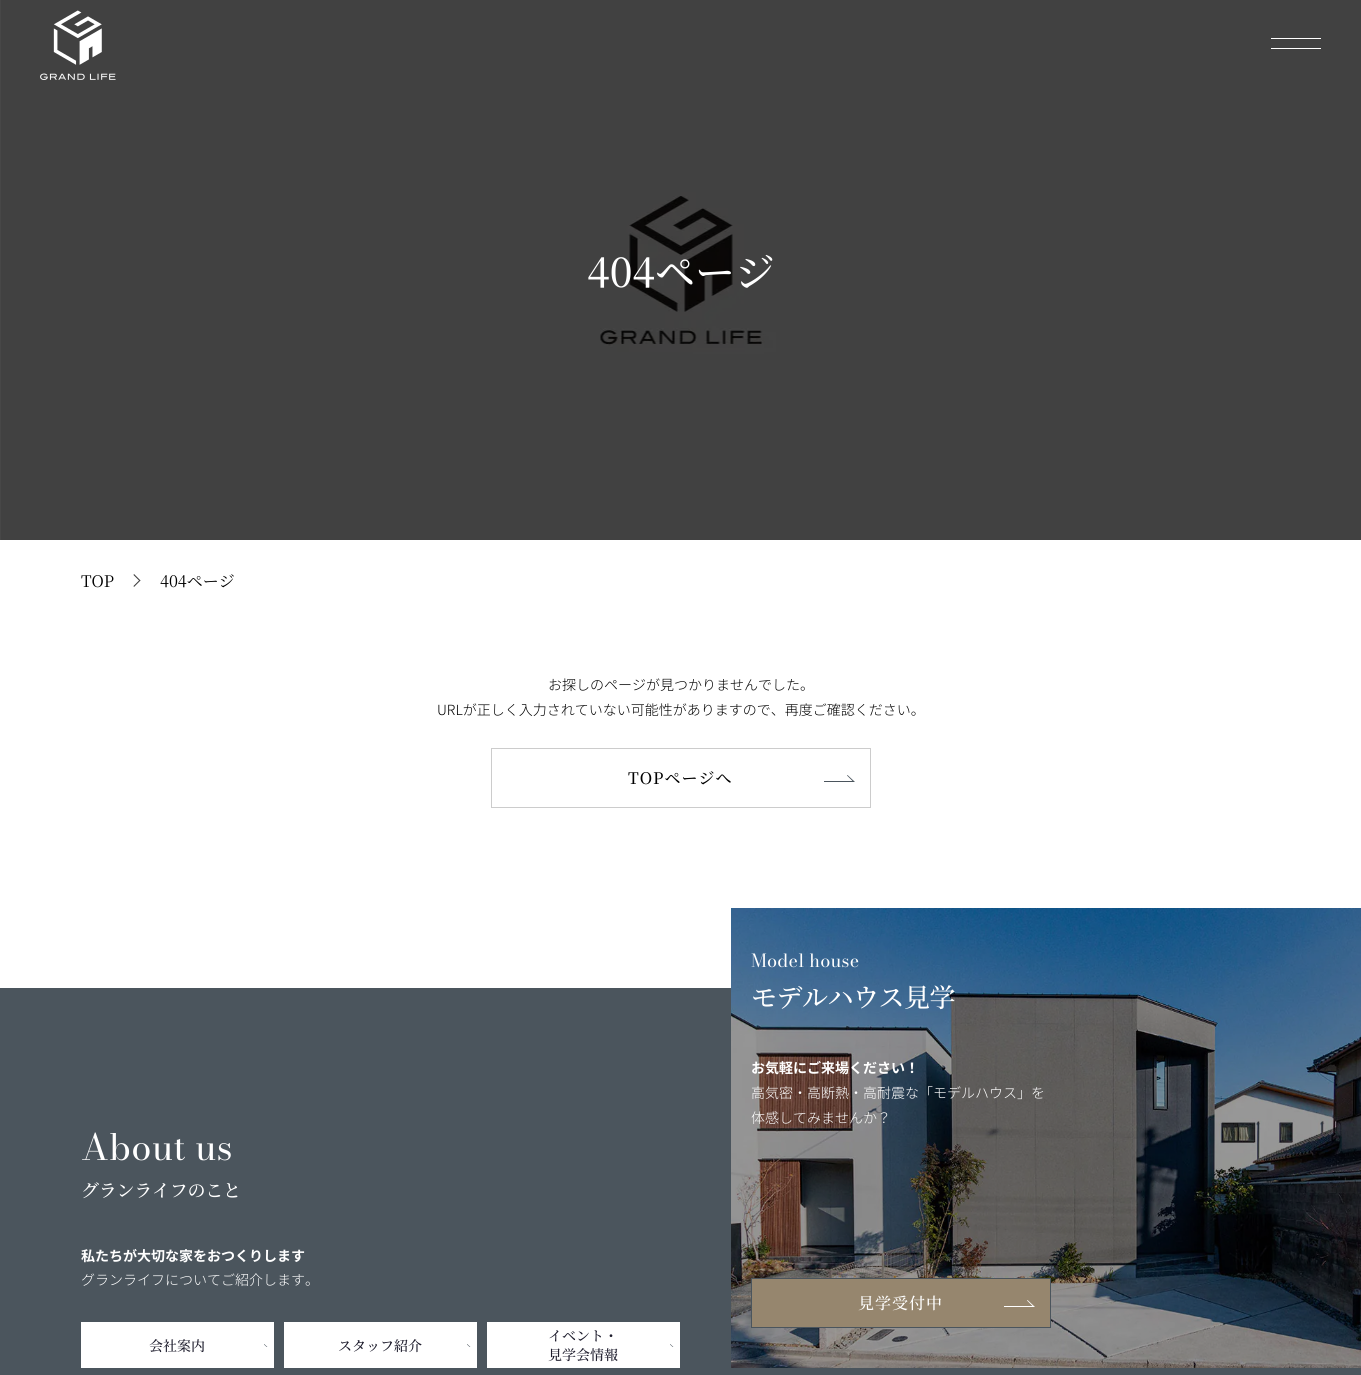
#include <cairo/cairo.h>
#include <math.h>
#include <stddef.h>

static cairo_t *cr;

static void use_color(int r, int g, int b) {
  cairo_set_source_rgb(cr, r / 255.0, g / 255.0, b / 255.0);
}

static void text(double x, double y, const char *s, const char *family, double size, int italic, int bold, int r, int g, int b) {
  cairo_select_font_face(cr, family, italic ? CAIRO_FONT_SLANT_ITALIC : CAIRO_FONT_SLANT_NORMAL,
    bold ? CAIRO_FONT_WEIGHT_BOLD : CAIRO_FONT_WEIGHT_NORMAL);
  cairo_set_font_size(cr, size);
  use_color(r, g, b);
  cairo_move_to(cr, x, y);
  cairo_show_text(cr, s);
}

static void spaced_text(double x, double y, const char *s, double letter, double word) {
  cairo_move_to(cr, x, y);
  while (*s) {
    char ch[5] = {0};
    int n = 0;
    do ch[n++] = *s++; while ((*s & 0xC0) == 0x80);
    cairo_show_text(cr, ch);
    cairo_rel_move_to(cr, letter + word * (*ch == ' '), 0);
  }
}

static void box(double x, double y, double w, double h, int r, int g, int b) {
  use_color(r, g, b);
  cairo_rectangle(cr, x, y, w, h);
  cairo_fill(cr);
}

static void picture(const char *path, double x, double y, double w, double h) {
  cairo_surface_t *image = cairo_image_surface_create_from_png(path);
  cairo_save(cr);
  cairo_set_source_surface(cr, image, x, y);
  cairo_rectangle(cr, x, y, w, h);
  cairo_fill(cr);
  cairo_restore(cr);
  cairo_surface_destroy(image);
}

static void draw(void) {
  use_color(255, 255, 255);
  cairo_paint(cr);
  box(0, 0, 1, 540, 77, 77, 77);
  picture("img_02.png", 0, 0, 1361, 540);
  picture("img_01.png", 40, 10, 76, 70);
  box(1271, 38, 50, 1, 255, 255, 255);
  box(1271, 48, 50, 1, 255, 255, 255);
  use_color(60, 60, 60);
  cairo_new_path(cr);
  cairo_move_to(cr, 133.5, 575);
  cairo_line_to(cr, 134, 574);
  cairo_line_to(cr, 140.5, 580.5);
  cairo_line_to(cr, 139.5, 581);
  cairo_close_path(cr);
  cairo_fill(cr);
  cairo_new_path(cr);
  cairo_move_to(cr, 133.5, 586);
  cairo_line_to(cr, 139.5, 580);
  cairo_line_to(cr, 140.5, 580.5);
  cairo_line_to(cr, 134, 587);
  cairo_close_path(cr);
  cairo_fill(cr);
  use_color(75, 85, 93);
  cairo_set_fill_rule(cr, CAIRO_FILL_RULE_EVEN_ODD);
  cairo_new_path(cr);
  cairo_move_to(cr, 855, 782);
  cairo_line_to(cr, 824, 782);
  cairo_line_to(cr, 824, 781);
  cairo_line_to(cr, 852.5, 781);
  cairo_line_to(cr, 847, 775.5);
  cairo_line_to(cr, 847.5, 775);
  cairo_close_path(cr);
  cairo_fill(cr);
  cairo_rectangle(cr, 491.5, 748.5, 379, 59);
  use_color(204, 204, 204);
  cairo_set_line_width(cr, 1);
  cairo_stroke(cr);
  box(0, 988, 1361, 387, 75, 85, 93);
  box(81, 1322, 193, 46, 255, 255, 255);
  picture("img_03.png", 264, 1344, 4, 3);
  box(284, 1322, 193, 46, 255, 255, 255);
  picture("img_03.png", 467, 1344, 4, 3);
  box(487, 1322, 193, 46, 255, 255, 255);
  picture("img_03.png", 670, 1344, 4, 3);
  picture("img_04.png", 731, 908, 630, 460);
  box(752, 1279, 298, 48, 150, 134, 110);
  use_color(255, 255, 255);
  cairo_new_path(cr);
  cairo_move_to(cr, 1035, 1307);
  cairo_line_to(cr, 1004, 1307);
  cairo_line_to(cr, 1004, 1306);
  cairo_line_to(cr, 1032.5, 1306);
  cairo_line_to(cr, 1027, 1300.5);
  cairo_line_to(cr, 1027.5, 1300);
  cairo_close_path(cr);
  cairo_fill(cr);
  cairo_rectangle(cr, 751.5, 1278.5, 299, 49);
  use_color(75, 85, 93);
  cairo_stroke(cr);
  text(587, 287, "404ページ", "Noto Serif JP Medium", 40, 0, 0, 255, 255, 255);
  text(81, 587, "TOP", "Noto Serif JP", 16, 0, 0, 0, 0, 0);
  text(160, 587, "404ページ", "Noto Serif JP", 16, 0, 0, 0, 0, 0);
  text(548, 690, "お探しのページが見つかりませんでした。", "Noto Sans JP Light", 14, 0, 0, 0, 0, 0);
  text(437, 715, "URLが正しく入力されていない可能性がありますので、再度ご確認ください。", "Noto Sans JP Light", 14, 0, 0, 0, 0, 0);
  cairo_select_font_face(cr, "Noto Serif JP Medium", CAIRO_FONT_SLANT_NORMAL, CAIRO_FONT_WEIGHT_NORMAL);
  cairo_set_font_size(cr, 16);
  spaced_text(628, 784, "TOPページへ", 1, 0);
  cairo_select_font_face(cr, "Bodoni Moda", CAIRO_FONT_SLANT_NORMAL, CAIRO_FONT_WEIGHT_NORMAL);
  cairo_set_font_size(cr, 36);
  use_color(255, 255, 255);
  spaced_text(81, 1160, "About us", 0.25, 0);
  cairo_select_font_face(cr, "Noto Serif JP Medium", CAIRO_FONT_SLANT_NORMAL, CAIRO_FONT_WEIGHT_NORMAL);
  cairo_set_font_size(cr, 18);
  spaced_text(81, 1197, "グランライフのこと", -0.25, 0);
  text(81, 1261, "私たちが大切な家をおつくりします", "Noto Sans JP", 14, 0, 1, 255, 255, 255);
  text(81, 1285, "グランライフについてご紹介します。", "Noto Sans JP Light", 14, 0, 0, 255, 255, 255);
  text(149, 1351, "会社案内", "Noto Serif JP Medium", 14, 0, 0, 29, 28, 44);
  text(338, 1351, "スタッフ紹介", "Noto Serif JP Medium", 14, 0, 0, 29, 28, 44);
  text(548, 1341, "イベント・", "Noto Serif JP Medium", 14, 0, 0, 29, 28, 44);
  text(548, 1360, "見学会情報", "Noto Serif JP Medium", 14, 0, 0, 29, 28, 44);
  cairo_select_font_face(cr, "Bodoni Moda", CAIRO_FONT_SLANT_NORMAL, CAIRO_FONT_WEIGHT_NORMAL);
  cairo_set_font_size(cr, 18);
  use_color(255, 255, 255);
  spaced_text(751, 967, "Model house", 0.25, 0);
  cairo_select_font_face(cr, "Noto Serif JP Medium", CAIRO_FONT_SLANT_NORMAL, CAIRO_FONT_WEIGHT_NORMAL);
  cairo_set_font_size(cr, 26);
  spaced_text(751, 1007, "モデルハウス見学", -0.5, 0);
  text(751, 1073, "お気軽にご来場ください！", "Noto Sans JP", 14, 0, 1, 255, 255, 255);
  text(751, 1098, "高気密・高断熱・高耐震な「モデルハウス」を", "Noto Sans JP Light", 14, 0, 0, 255, 255, 255);
  text(751, 1123, "体感してみませんか？", "Noto Sans JP Light", 14, 0, 0, 255, 255, 255);
  cairo_select_font_face(cr, "Noto Serif JP Medium", CAIRO_FONT_SLANT_NORMAL, CAIRO_FONT_WEIGHT_NORMAL);
  cairo_set_font_size(cr, 16);
  spaced_text(858, 1309, "見学受付中", 1, 0);
}

int main(void) {
  cairo_surface_t *surface = cairo_image_surface_create(CAIRO_FORMAT_RGB24, 1361, 1375);
  cr = cairo_create(surface);
  cairo_font_options_t *options = cairo_font_options_create();
  cairo_font_options_set_hint_metrics(options, CAIRO_HINT_METRICS_OFF);
  cairo_font_options_set_hint_style(options, CAIRO_HINT_STYLE_NONE);
  cairo_set_font_options(cr, options);
  cairo_set_miter_limit(cr, 4);
  draw();
  cairo_surface_write_to_png(surface, "out.png");
  cairo_font_options_destroy(options);
  cairo_destroy(cr);
  cairo_surface_destroy(surface);
  return 0;
}
